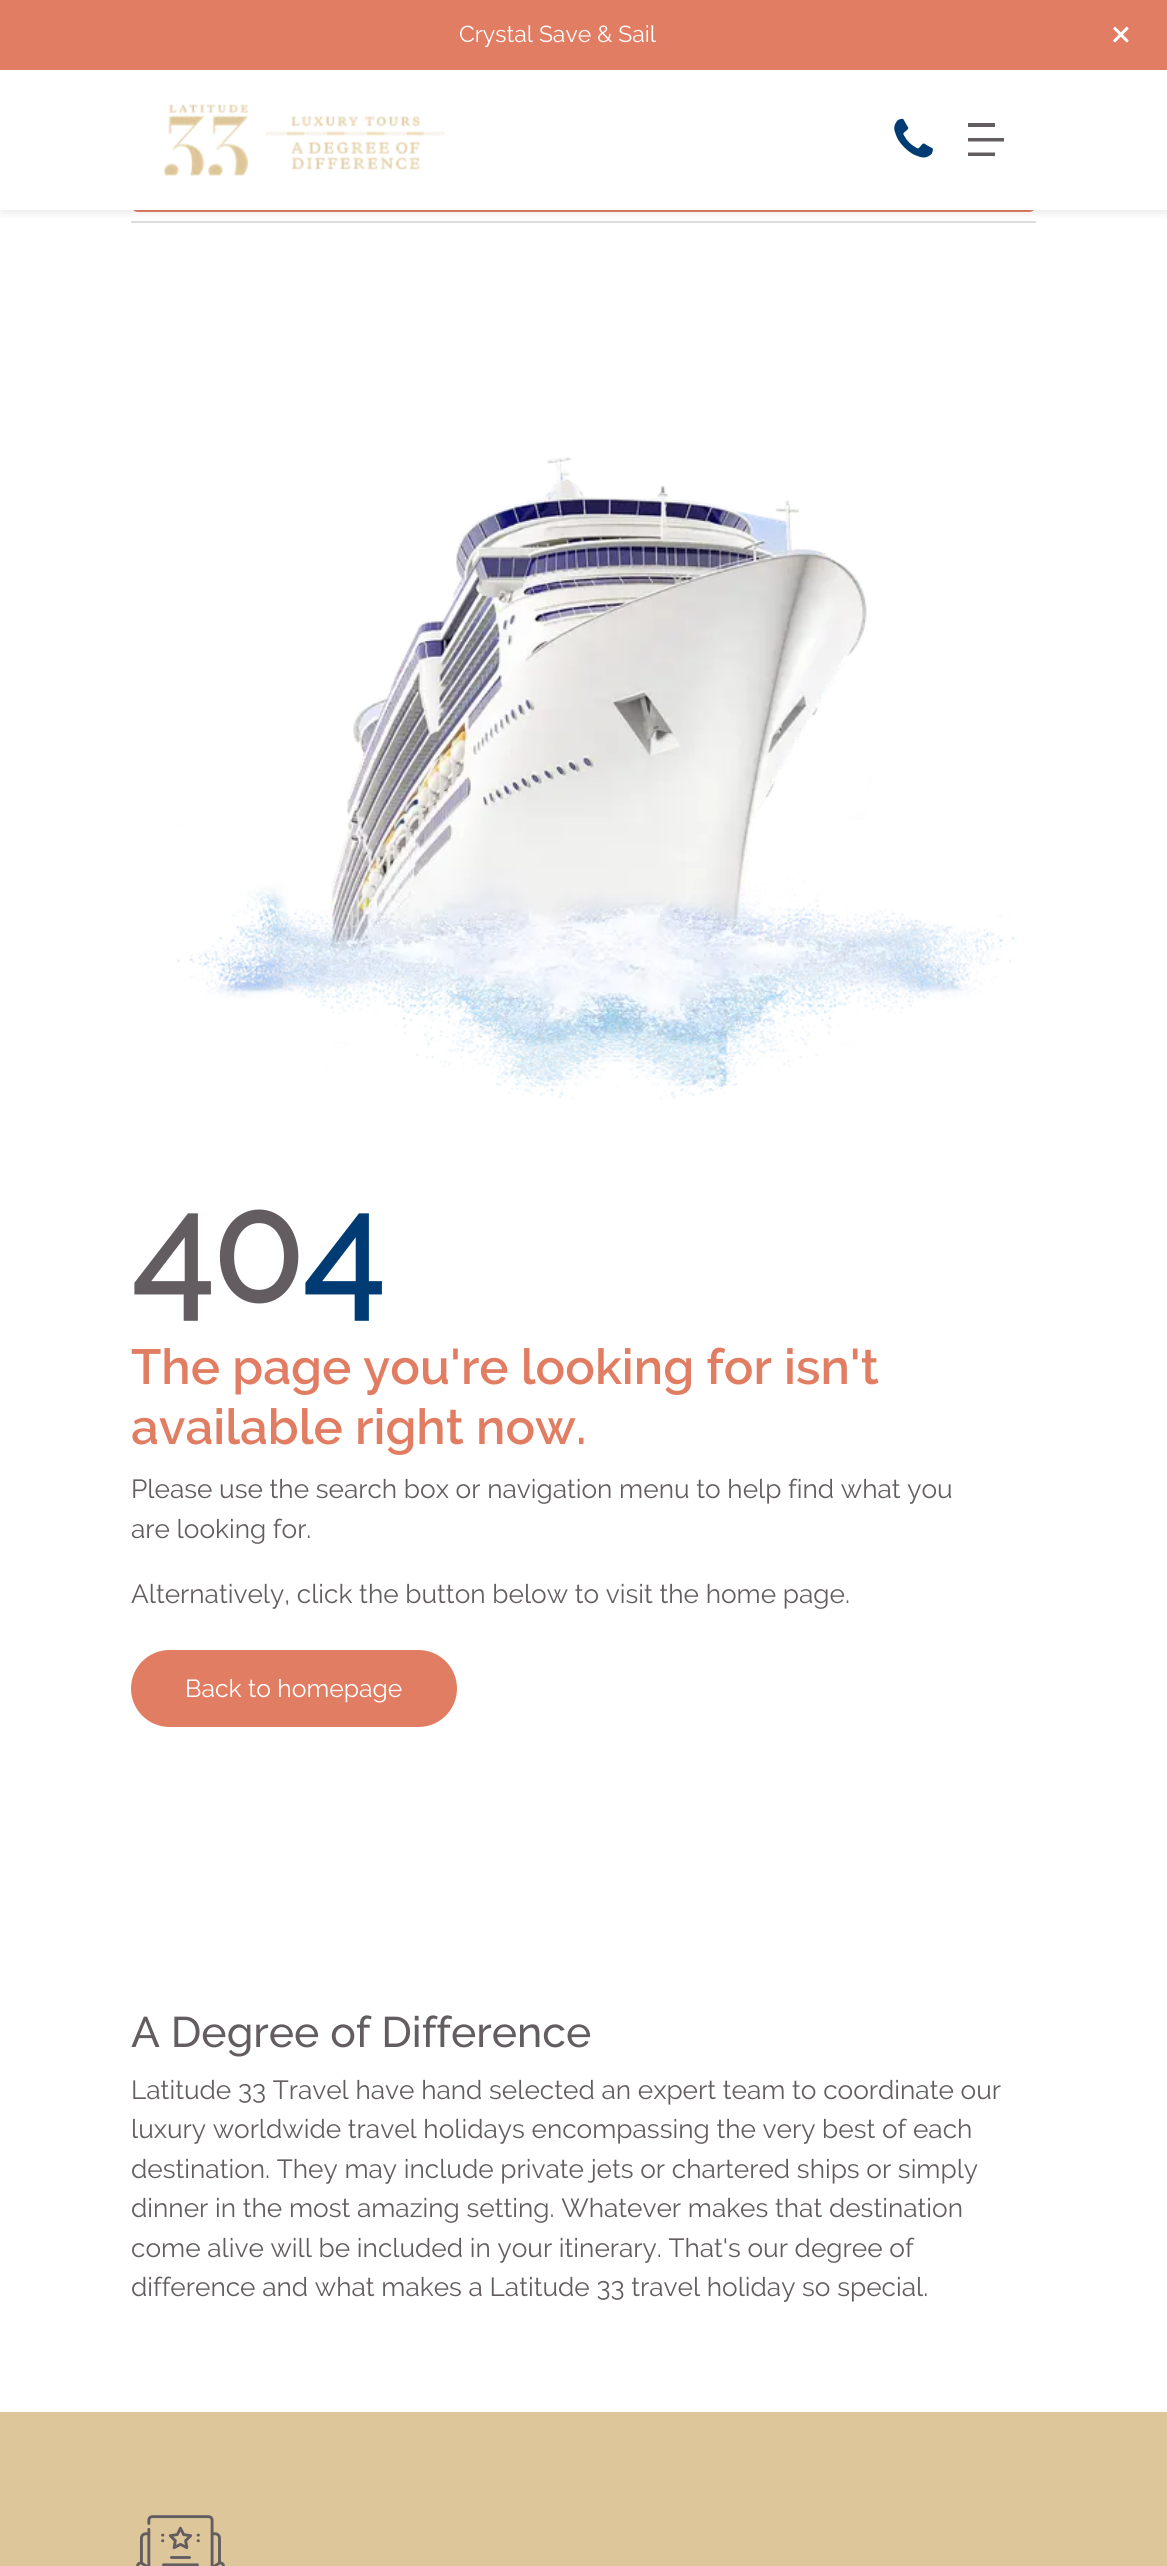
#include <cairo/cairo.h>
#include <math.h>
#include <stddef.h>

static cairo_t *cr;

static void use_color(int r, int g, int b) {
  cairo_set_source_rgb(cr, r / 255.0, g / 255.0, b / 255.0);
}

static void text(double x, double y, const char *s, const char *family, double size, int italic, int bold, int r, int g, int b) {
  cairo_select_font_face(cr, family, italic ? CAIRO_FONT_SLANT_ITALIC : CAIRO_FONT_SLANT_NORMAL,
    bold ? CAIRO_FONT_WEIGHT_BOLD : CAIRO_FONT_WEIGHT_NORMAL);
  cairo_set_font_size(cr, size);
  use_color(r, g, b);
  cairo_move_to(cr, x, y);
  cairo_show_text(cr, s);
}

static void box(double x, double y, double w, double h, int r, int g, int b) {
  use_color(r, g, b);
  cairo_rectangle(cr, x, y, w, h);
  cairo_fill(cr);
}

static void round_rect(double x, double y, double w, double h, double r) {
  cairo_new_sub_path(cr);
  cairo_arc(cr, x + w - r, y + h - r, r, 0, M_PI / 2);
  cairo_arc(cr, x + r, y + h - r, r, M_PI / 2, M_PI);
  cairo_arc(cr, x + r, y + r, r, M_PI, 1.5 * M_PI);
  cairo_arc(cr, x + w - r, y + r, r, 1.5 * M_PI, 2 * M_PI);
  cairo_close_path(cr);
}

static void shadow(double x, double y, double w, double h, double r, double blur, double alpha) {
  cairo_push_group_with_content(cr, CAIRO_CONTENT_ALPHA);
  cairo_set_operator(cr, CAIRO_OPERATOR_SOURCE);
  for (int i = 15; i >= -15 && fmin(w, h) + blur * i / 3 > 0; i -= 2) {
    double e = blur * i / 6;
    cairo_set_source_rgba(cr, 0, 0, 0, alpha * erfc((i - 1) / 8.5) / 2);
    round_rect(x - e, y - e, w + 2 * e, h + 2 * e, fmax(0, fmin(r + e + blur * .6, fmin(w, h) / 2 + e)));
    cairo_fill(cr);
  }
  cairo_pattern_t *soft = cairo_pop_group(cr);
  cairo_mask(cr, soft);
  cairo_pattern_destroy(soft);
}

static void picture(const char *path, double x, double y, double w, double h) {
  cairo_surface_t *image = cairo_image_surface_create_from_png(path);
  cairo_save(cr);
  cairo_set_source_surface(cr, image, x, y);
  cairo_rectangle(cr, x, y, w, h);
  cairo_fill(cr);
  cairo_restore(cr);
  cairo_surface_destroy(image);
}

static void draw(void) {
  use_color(255, 255, 255);
  cairo_paint(cr);
  box(0, 0, 1167, 70, 225, 125, 99);
  picture("img_01.png", 1113, 26, 16, 17);
  round_rect(131, 140, 905, 72, 7);
  cairo_fill(cr);
  box(131, 221, 905, 2, 221, 221, 221);
  use_color(0, 0, 0);
  shadow(0, 74, 1167, 140, 0, 3.5, 0.07);
  box(0, 70, 1167, 140, 255, 255, 255);
  picture("img_02.png", 163, 104, 282, 72);
  picture("img_03.png", 894, 118, 39, 40);
  use_color(99, 93, 97);
  cairo_new_path(cr);
  cairo_move_to(cr, 968, 123);
  cairo_line_to(cr, 995, 123);
  cairo_line_to(cr, 995, 127);
  cairo_line_to(cr, 968, 127);
  cairo_close_path(cr);
  cairo_move_to(cr, 968, 138);
  cairo_line_to(cr, 1004, 138);
  cairo_line_to(cr, 1004, 141.5);
  cairo_line_to(cr, 968, 141.5);
  cairo_close_path(cr);
  cairo_move_to(cr, 968, 152.5);
  cairo_line_to(cr, 995, 152.5);
  cairo_line_to(cr, 995, 156);
  cairo_line_to(cr, 968, 156);
  cairo_close_path(cr);
  cairo_fill(cr);
  picture("img_04.png", 175, 457, 843, 643);
  use_color(225, 125, 99);
  round_rect(131, 1650, 326, 77, 38.5);
  cairo_fill(cr);
  box(0, 2412, 1167, 154, 221, 198, 154);
  picture("img_05.png", 136, 2515, 89, 51);
  text(459, 42, "Crystal Save & Sail", "Raleway", 23, 0, 0, 255, 255, 255);
  text(131, 1302, "40", "Raleway", 148, 0, 1, 99, 93, 97);
  text(302, 1302, "4", "Raleway", 148, 0, 1, 0, 60, 115);
  text(131, 1384, "The page you're looking for isn't", "Raleway SemiBold", 49.25, 0, 0, 225, 125, 99);
  text(131, 1444, "available right now.", "Raleway SemiBold", 49.25, 0, 0, 225, 125, 99);
  text(131, 1498, "Please use the search box or navigation menu to help find what you", "Raleway", 26.25, 0, 0, 99, 93, 97);
  text(131, 1538, "are looking for.", "Raleway", 26.25, 0, 0, 99, 93, 97);
  text(131, 1603, "Alternatively, click the button below to visit the home page.", "Raleway", 26.25, 0, 0, 99, 93, 97);
  text(185, 1697, "Back to homepage", "Raleway", 24.75, 0, 0, 255, 255, 255);
  text(131, 2047, "A Degree of Difference", "Raleway Medium", 42.75, 0, 0, 99, 93, 97);
  text(131, 2099, "Latitude 33 Travel have hand selected an expert team to coordinate our", "Raleway", 26.25, 0, 0, 99, 93, 97);
  text(131, 2138, "luxury worldwide travel holidays encompassing the very best of each", "Raleway", 26.25, 0, 0, 99, 93, 97);
  text(131, 2178, "destination. They may include private jets or chartered ships or simply", "Raleway", 26.25, 0, 0, 99, 93, 97);
  text(131, 2217, "dinner in the most amazing setting. Whatever makes that destination", "Raleway", 26.25, 0, 0, 99, 93, 97);
  text(131, 2257, "come alive will be included in your itinerary. That's our degree of", "Raleway", 26.25, 0, 0, 99, 93, 97);
  text(131, 2296, "difference and what makes a Latitude 33 travel holiday so special.", "Raleway", 26.25, 0, 0, 99, 93, 97);
}

int main(void) {
  cairo_surface_t *surface = cairo_image_surface_create(CAIRO_FORMAT_RGB24, 1167, 2566);
  cr = cairo_create(surface);
  cairo_font_options_t *options = cairo_font_options_create();
  cairo_font_options_set_hint_metrics(options, CAIRO_HINT_METRICS_OFF);
  cairo_font_options_set_hint_style(options, CAIRO_HINT_STYLE_NONE);
  cairo_set_font_options(cr, options);
  cairo_set_miter_limit(cr, 4);
  draw();
  cairo_surface_write_to_png(surface, "out.png");
  cairo_font_options_destroy(options);
  cairo_destroy(cr);
  cairo_surface_destroy(surface);
  return 0;
}
